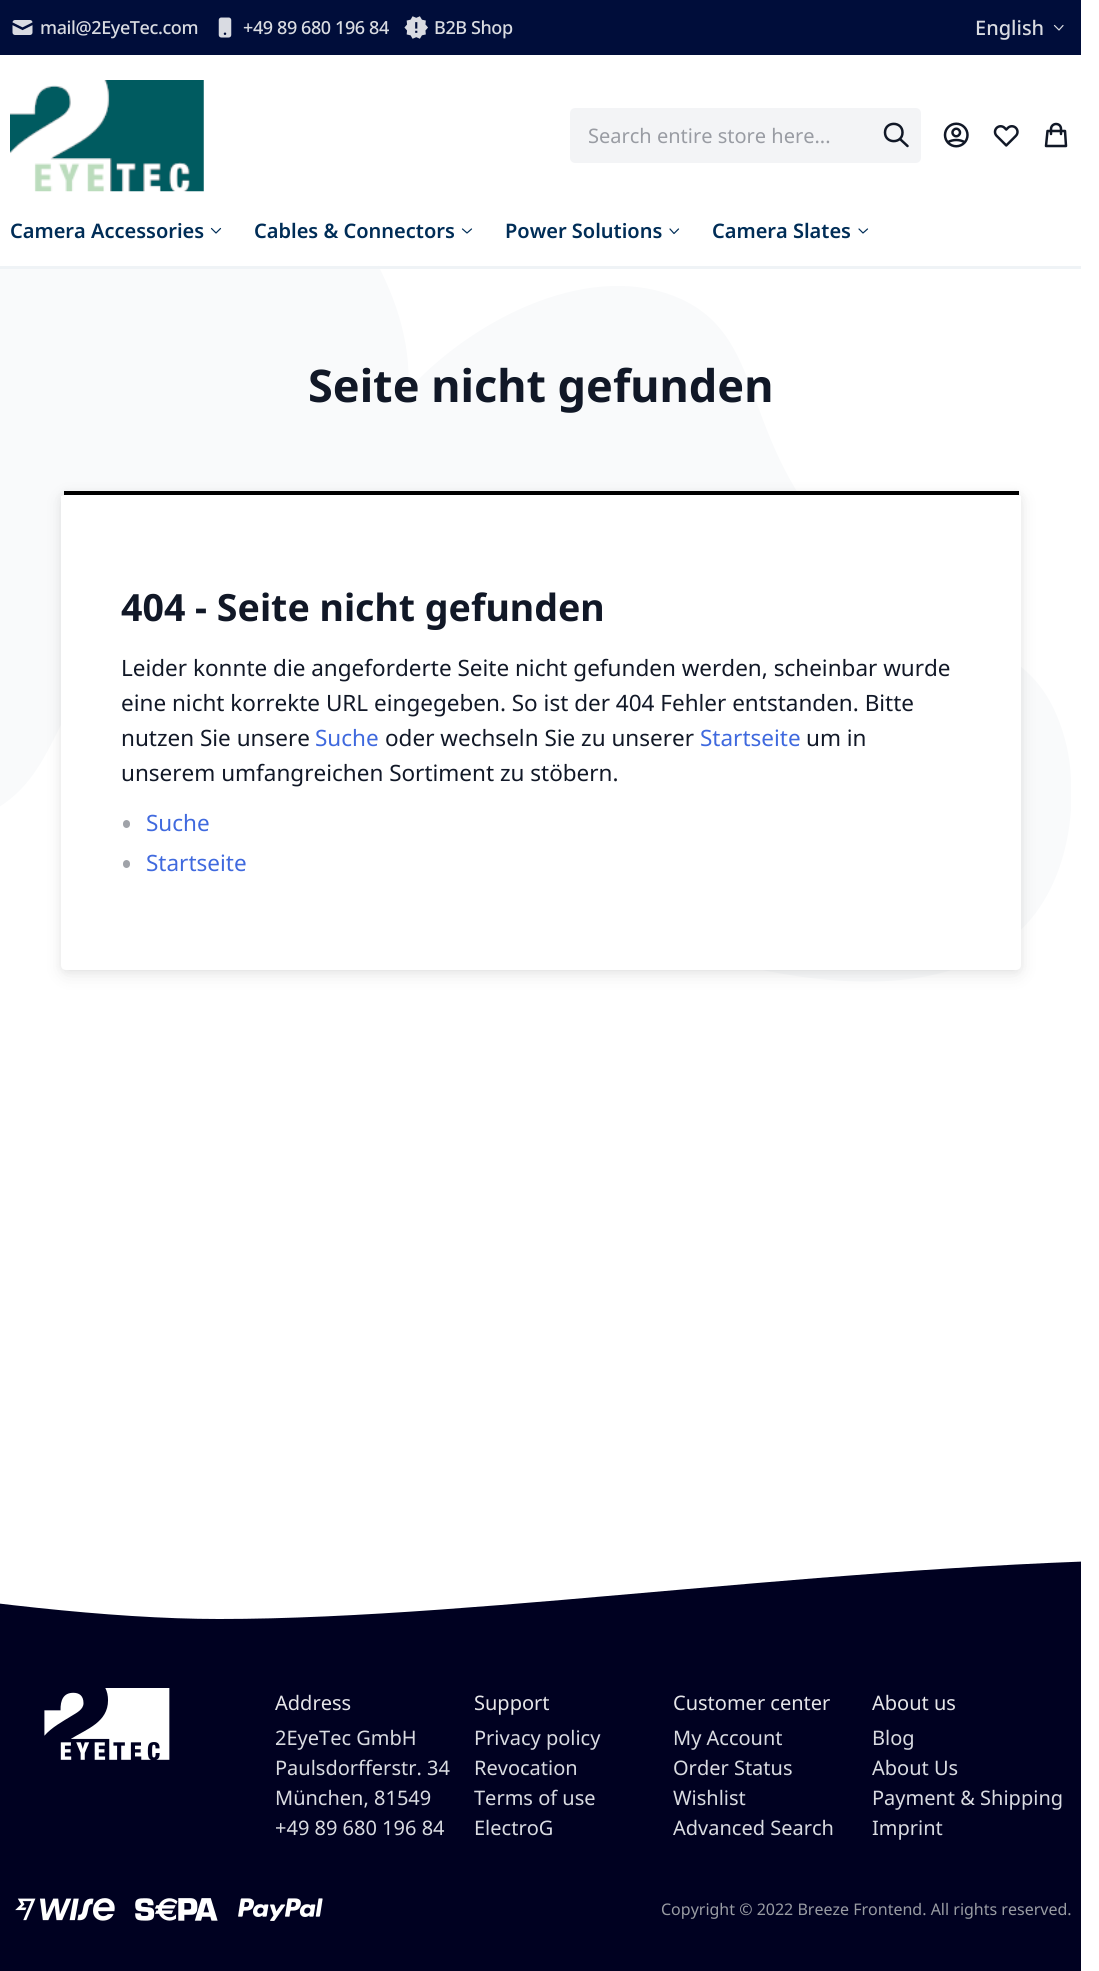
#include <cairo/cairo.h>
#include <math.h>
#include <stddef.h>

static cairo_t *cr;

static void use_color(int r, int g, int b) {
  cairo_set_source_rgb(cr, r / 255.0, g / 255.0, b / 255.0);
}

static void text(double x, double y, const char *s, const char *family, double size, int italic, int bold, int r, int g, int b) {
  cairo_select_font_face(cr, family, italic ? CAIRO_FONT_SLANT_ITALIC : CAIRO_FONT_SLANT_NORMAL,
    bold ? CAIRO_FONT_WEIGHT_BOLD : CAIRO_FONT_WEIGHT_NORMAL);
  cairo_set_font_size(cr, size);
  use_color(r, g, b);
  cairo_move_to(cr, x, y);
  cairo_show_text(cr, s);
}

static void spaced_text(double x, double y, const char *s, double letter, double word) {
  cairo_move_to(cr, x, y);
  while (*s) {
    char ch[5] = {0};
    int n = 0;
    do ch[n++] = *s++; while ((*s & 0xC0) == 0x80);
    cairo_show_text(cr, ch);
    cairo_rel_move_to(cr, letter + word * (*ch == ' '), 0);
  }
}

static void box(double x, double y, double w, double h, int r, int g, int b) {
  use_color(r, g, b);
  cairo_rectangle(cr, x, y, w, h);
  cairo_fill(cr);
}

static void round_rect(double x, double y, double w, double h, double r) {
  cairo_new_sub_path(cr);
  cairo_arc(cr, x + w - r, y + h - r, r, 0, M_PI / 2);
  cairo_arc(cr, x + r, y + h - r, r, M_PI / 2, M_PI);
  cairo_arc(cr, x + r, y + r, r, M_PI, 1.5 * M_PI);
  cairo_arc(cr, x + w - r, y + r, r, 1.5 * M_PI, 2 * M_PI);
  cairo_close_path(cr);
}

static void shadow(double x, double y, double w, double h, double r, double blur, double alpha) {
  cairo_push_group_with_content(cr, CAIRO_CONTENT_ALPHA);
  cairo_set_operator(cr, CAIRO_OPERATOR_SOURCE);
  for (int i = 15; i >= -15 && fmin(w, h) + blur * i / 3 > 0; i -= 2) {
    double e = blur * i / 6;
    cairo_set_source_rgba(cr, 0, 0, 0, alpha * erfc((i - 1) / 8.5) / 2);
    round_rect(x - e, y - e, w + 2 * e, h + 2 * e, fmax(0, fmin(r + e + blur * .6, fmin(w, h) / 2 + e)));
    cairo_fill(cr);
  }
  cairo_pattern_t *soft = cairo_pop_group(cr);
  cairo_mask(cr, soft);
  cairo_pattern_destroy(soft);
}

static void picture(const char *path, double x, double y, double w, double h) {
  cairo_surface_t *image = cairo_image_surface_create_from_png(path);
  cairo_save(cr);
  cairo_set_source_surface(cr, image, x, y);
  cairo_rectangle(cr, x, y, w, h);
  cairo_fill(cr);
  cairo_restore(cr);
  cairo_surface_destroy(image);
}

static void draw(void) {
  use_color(255, 255, 255);
  cairo_paint(cr);
  use_color(249, 250, 251);
  cairo_new_path(cr);
  cairo_move_to(cr, 309, 173);
  cairo_curve_to(cr, 377, 238, 436, 353, 395, 441);
  cairo_curve_to(cr, 353, 533, 246, 495, 134, 615);
  cairo_curve_to(cr, 46, 709, 61, 783, -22, 818);
  cairo_curve_to(cr, -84, 843, -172, 835, -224, 791);
  cairo_curve_to(cr, -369, 670, -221, 346, -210, 323);
  cairo_curve_to(cr, -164, 227, -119, 132, -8, 95);
  cairo_curve_to(cr, 103, 59, 230, 98, 309, 173);
  cairo_close_path(cr);
  cairo_fill(cr);
  box(0, 81, 378, 185, 255, 255, 255);
  box(0, 266, 1081, 3, 239, 243, 246);
  box(0, 0, 1081, 55, 0, 13, 58);
  picture("img_01.png", 12, 20, 21, 15);
  picture("img_02.png", 218, 17, 14, 21);
  picture("img_03.png", 404, 16, 24, 23);
  cairo_new_path(cr);
  cairo_move_to(cr, 1063, 25.5);
  cairo_line_to(cr, 1059, 30);
  cairo_line_to(cr, 1054.5, 25.5);
  use_color(217, 219, 225);
  cairo_set_line_width(cr, 1.2);
  cairo_set_line_cap(cr, CAIRO_LINE_CAP_ROUND);
  cairo_set_line_join(cr, CAIRO_LINE_JOIN_ROUND);
  cairo_stroke(cr);
  picture("img_04.png", 10, 80, 194, 112);
  use_color(243, 244, 246);
  round_rect(571.5, 109.5, 348, 52, 3.5);
  cairo_fill_preserve(cr);
  cairo_set_line_width(cr, 3);
  cairo_set_line_cap(cr, CAIRO_LINE_CAP_BUTT);
  cairo_set_line_join(cr, CAIRO_LINE_JOIN_MITER);
  cairo_stroke(cr);
  cairo_new_path(cr);
  cairo_move_to(cr, 907.5, 146);
  cairo_line_to(cr, 900, 139);
  cairo_move_to(cr, 902.5, 132.5);
  cairo_curve_to(cr, 902.5, 144, 885, 144, 885, 132.5);
  cairo_curve_to(cr, 885, 121, 902.5, 121, 902.5, 132.5);
  cairo_close_path(cr);
  use_color(17, 24, 39);
  cairo_set_line_width(cr, 2.5);
  cairo_set_line_cap(cr, CAIRO_LINE_CAP_ROUND);
  cairo_set_line_join(cr, CAIRO_LINE_JOIN_ROUND);
  cairo_stroke(cr);
  picture("img_05.png", 943, 122, 26, 26);
  picture("img_06.png", 993, 125, 26, 22);
  cairo_new_path(cr);
  cairo_move_to(cr, 1061, 134);
  cairo_line_to(cr, 1061, 129);
  cairo_curve_to(cr, 1061, 126, 1059, 124, 1056, 124);
  cairo_curve_to(cr, 1053.5, 124, 1051, 126, 1051, 129);
  cairo_line_to(cr, 1051, 134);
  cairo_move_to(cr, 1047.5, 131);
  cairo_line_to(cr, 1065, 131);
  cairo_line_to(cr, 1066, 146);
  cairo_line_to(cr, 1046, 146);
  cairo_close_path(cr);
  cairo_stroke(cr);
  cairo_new_path(cr);
  cairo_move_to(cr, 220.5, 228.5);
  cairo_line_to(cr, 216, 233);
  cairo_line_to(cr, 211.5, 228.5);
  use_color(0, 45, 87);
  cairo_set_line_width(cr, 1.2);
  cairo_stroke(cr);
  cairo_new_path(cr);
  cairo_move_to(cr, 471.5, 229);
  cairo_line_to(cr, 467, 233);
  cairo_line_to(cr, 462.5, 229);
  cairo_stroke(cr);
  cairo_new_path(cr);
  cairo_move_to(cr, 678.5, 229);
  cairo_line_to(cr, 674, 233.5);
  cairo_line_to(cr, 670, 229);
  cairo_stroke(cr);
  cairo_new_path(cr);
  cairo_move_to(cr, 867.5, 229);
  cairo_line_to(cr, 863, 233);
  cairo_line_to(cr, 859, 229);
  cairo_stroke(cr);
  use_color(249, 250, 251);
  cairo_new_path(cr);
  cairo_move_to(cr, 412, 386);
  cairo_curve_to(cr, 477, 317, 593, 259, 681, 299);
  cairo_curve_to(cr, 772, 341, 735, 449, 854, 561);
  cairo_curve_to(cr, 949, 649, 1023, 634, 1057, 716);
  cairo_curve_to(cr, 1065, 735, 1070, 756, 1071, 779);
  cairo_line_to(cr, 1071, 810);
  cairo_curve_to(cr, 1068, 851, 1055, 890, 1031, 919);
  cairo_curve_to(cr, 910, 1063, 585, 915, 562, 904);
  cairo_curve_to(cr, 466, 858, 371, 813, 335, 702);
  cairo_curve_to(cr, 299, 591, 338, 465, 412, 386);
  cairo_close_path(cr);
  cairo_fill(cr);
  use_color(0, 0, 0);
  shadow(61, 493, 960, 478, 5, 4, 0.05);
  shadow(64, 499, 955, 474, 2.5, 9.5, 0.1);
  use_color(255, 255, 255);
  cairo_new_path(cr);
  cairo_move_to(cr, 66, 495);
  cairo_line_to(cr, 1016, 495);
  cairo_curve_to(cr, 1019, 495, 1021, 496, 1021, 496);
  cairo_line_to(cr, 1021, 965);
  cairo_curve_to(cr, 1021, 968, 1019, 970, 1016, 970);
  cairo_line_to(cr, 66, 970);
  cairo_curve_to(cr, 63, 970, 61, 968, 61, 965);
  cairo_line_to(cr, 61, 496);
  cairo_curve_to(cr, 61, 496, 63, 495, 66, 495);
  cairo_close_path(cr);
  cairo_fill(cr);
  box(64, 491, 955, 4, 0, 0, 0);
  use_color(160, 163, 169);
  round_rect(123, 820, 7, 8, 3.5);
  cairo_fill(cr);
  round_rect(123, 860, 7, 8, 3.5);
  cairo_fill(cr);
  cairo_save(cr);
  cairo_rectangle(cr, 0, 1528, 1081, 108);
  cairo_clip(cr);
  use_color(0, 1, 33);
  cairo_new_path(cr);
  cairo_move_to(cr, 219, 1619);
  cairo_curve_to(cr, -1, 1619, -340, 1549, -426, 1536);
  cairo_curve_to(cr, -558, 1516, -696, 1536, -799, 1559);
  cairo_curve_to(cr, -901, 1581, -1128, 1619, -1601, 1619);
  cairo_line_to(cr, -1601, 1636);
  cairo_line_to(cr, 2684, 1636);
  cairo_line_to(cr, 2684, 1619);
  cairo_curve_to(cr, 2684, 1619, 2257, 1609, 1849, 1591);
  cairo_curve_to(cr, 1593, 1580, 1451, 1559, 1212, 1559);
  cairo_curve_to(cr, 868, 1559, 489, 1619, 219, 1619);
  cairo_close_path(cr);
  cairo_fill(cr);
  cairo_restore(cr);
  box(0, 1636, 1081, 335, 0, 1, 33);
  picture("img_07.png", 44, 1688, 126, 72);
  picture("img_08.png", 15, 1898, 308, 23);
  cairo_select_font_face(cr, "Noto Sans Medium", CAIRO_FONT_SLANT_NORMAL, CAIRO_FONT_WEIGHT_NORMAL);
  cairo_set_font_size(cr, 18);
  use_color(217, 219, 225);
  spaced_text(40, 34, "mail@2EyeTec.com", -0.4, 0);
  spaced_text(243, 34, "+49 89 680 196 84", -0.4, 0);
  spaced_text(434, 34, "B2B Shop", -0.4, 0);
  text(975, 35, "English", "Noto Sans Medium", 20, 0, 0, 217, 219, 225);
  text(588, 143, "Search entire store here...", "Noto Sans", 20, 0, 0, 153, 156, 163);
  text(10, 238, "Camera Accessories", "Noto Sans SemiBold", 20, 0, 0, 0, 45, 87);
  text(254, 238, "Cables & Connectors", "Noto Sans SemiBold", 20, 0, 0, 0, 45, 87);
  text(505, 238, "Power Solutions", "Noto Sans SemiBold", 20, 0, 0, 0, 45, 87);
  text(712, 238, "Camera Slates", "Noto Sans SemiBold", 20, 0, 0, 0, 45, 87);
  text(308, 402, "Seite nicht gefunden", "Noto Sans", 45, 0, 1, 17, 24, 39);
  text(121, 621, "404 - Seite nicht gefunden", "Noto Sans", 37.5, 0, 1, 17, 24, 39);
  text(121, 676, "Leider konnte die angeforderte Seite nicht gefunden werden, scheinbar wurde", "Noto Sans", 22.5, 0, 0, 17, 24, 39);
  text(121, 711, "eine nicht korrekte URL eingegeben. So ist der 404 Fehler entstanden. Bitte", "Noto Sans", 22.5, 0, 0, 17, 24, 39);
  text(121, 746, "nutzen Sie unsere", "Noto Sans", 22.5, 0, 0, 17, 24, 39);
  text(315, 746, "Suche", "Noto Sans", 22.5, 0, 0, 63, 105, 222);
  text(385, 746, "oder wechseln Sie zu unserer", "Noto Sans", 22.5, 0, 0, 17, 24, 39);
  text(700, 746, "Startseite", "Noto Sans", 22.5, 0, 0, 63, 105, 222);
  text(806, 746, "um in", "Noto Sans", 22.5, 0, 0, 17, 24, 39);
  text(121, 781, "unserem umfangreichen Sortiment zu stöbern.", "Noto Sans", 22.5, 0, 0, 17, 24, 39);
  text(146, 831, "Suche", "Noto Sans", 22.5, 0, 0, 63, 105, 222);
  text(146, 871, "Startseite", "Noto Sans", 22.5, 0, 0, 63, 105, 222);
  text(275, 1710, "Address", "Noto Sans", 20, 0, 0, 230, 230, 233);
  text(275, 1745, "2EyeTec GmbH", "Noto Sans", 20, 0, 0, 217, 219, 225);
  text(275, 1775, "Paulsdorfferstr. 34", "Noto Sans", 20, 0, 0, 217, 219, 225);
  text(275, 1805, "München, 81549", "Noto Sans", 20, 0, 0, 217, 219, 225);
  text(275, 1835, "+49 89 680 196 84", "Noto Sans", 20, 0, 0, 217, 219, 225);
  text(474, 1710, "Support", "Noto Sans", 20, 0, 0, 230, 230, 233);
  text(474, 1745, "Privacy policy", "Noto Sans", 20, 0, 0, 217, 219, 225);
  text(474, 1775, "Revocation", "Noto Sans", 20, 0, 0, 217, 219, 225);
  text(474, 1805, "Terms of use", "Noto Sans", 20, 0, 0, 217, 219, 225);
  text(474, 1835, "ElectroG", "Noto Sans", 20, 0, 0, 217, 219, 225);
  text(673, 1710, "Customer center", "Noto Sans", 20, 0, 0, 230, 230, 233);
  text(673, 1745, "My Account", "Noto Sans", 20, 0, 0, 217, 219, 225);
  text(673, 1775, "Order Status", "Noto Sans", 20, 0, 0, 217, 219, 225);
  text(673, 1805, "Wishlist", "Noto Sans", 20, 0, 0, 217, 219, 225);
  text(673, 1835, "Advanced Search", "Noto Sans", 20, 0, 0, 217, 219, 225);
  text(872, 1710, "About us", "Noto Sans", 20, 0, 0, 230, 230, 233);
  text(872, 1745, "Blog", "Noto Sans", 20, 0, 0, 217, 219, 225);
  text(872, 1775, "About Us", "Noto Sans", 20, 0, 0, 217, 219, 225);
  text(872, 1805, "Payment & Shipping", "Noto Sans", 20, 0, 0, 217, 219, 225);
  text(872, 1835, "Imprint", "Noto Sans", 20, 0, 0, 217, 219, 225);
  text(661, 1915, "Copyright © 2022 Breeze Frontend. All rights reserved.", "Noto Sans", 16, 0, 0, 153, 156, 163);
}

int main(void) {
  cairo_surface_t *surface = cairo_image_surface_create(CAIRO_FORMAT_RGB24, 1099, 1971);
  cr = cairo_create(surface);
  cairo_font_options_t *options = cairo_font_options_create();
  cairo_font_options_set_hint_metrics(options, CAIRO_HINT_METRICS_OFF);
  cairo_font_options_set_hint_style(options, CAIRO_HINT_STYLE_NONE);
  cairo_set_font_options(cr, options);
  cairo_set_miter_limit(cr, 4);
  draw();
  cairo_surface_write_to_png(surface, "out.png");
  cairo_font_options_destroy(options);
  cairo_destroy(cr);
  cairo_surface_destroy(surface);
  return 0;
}
